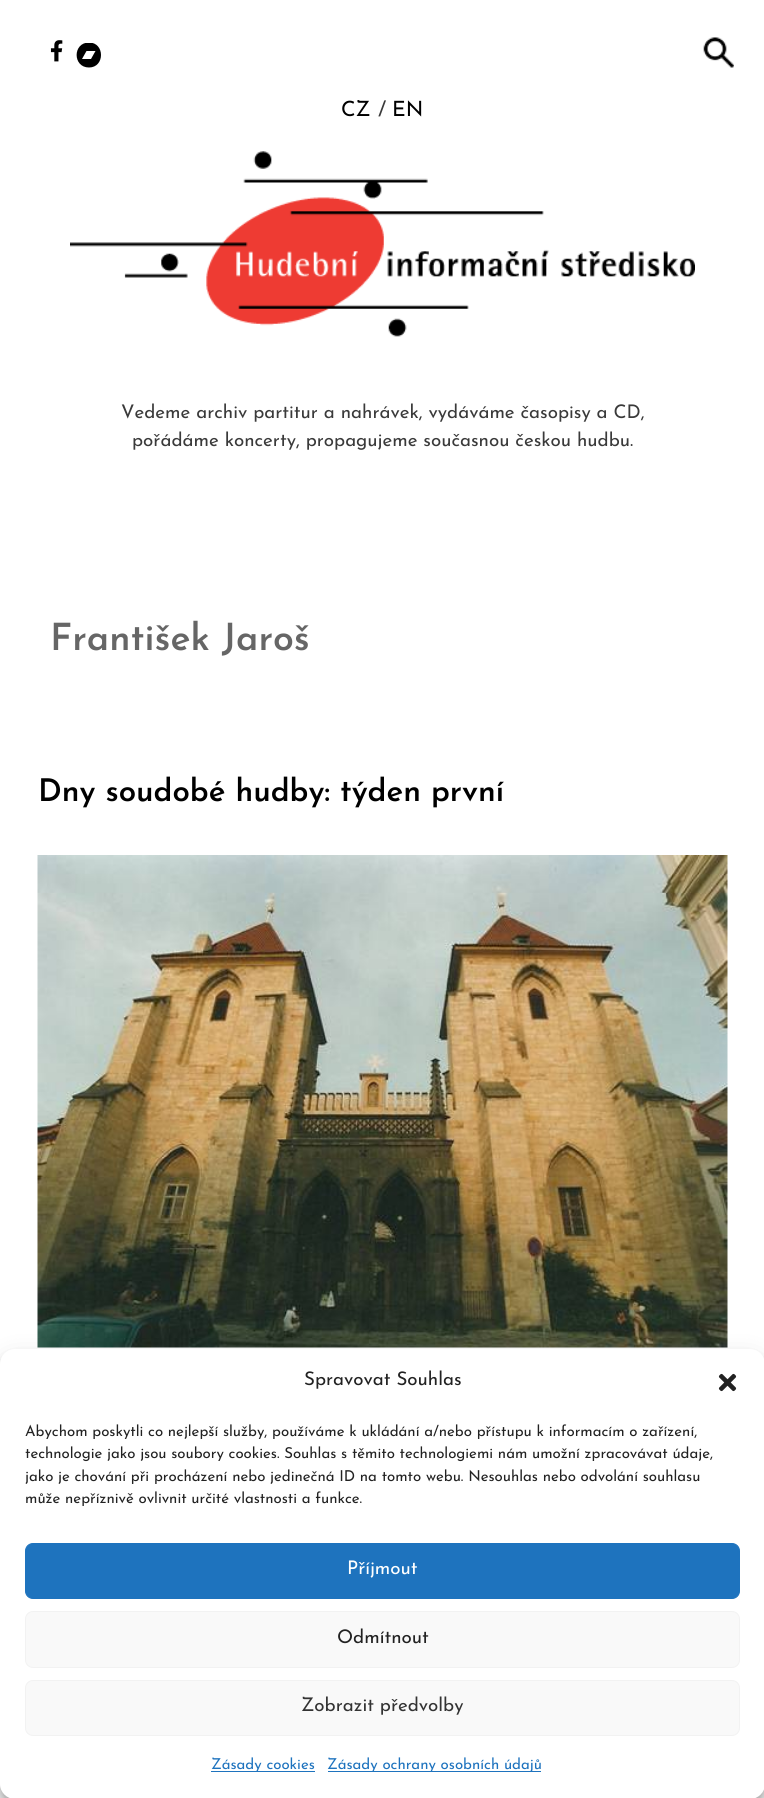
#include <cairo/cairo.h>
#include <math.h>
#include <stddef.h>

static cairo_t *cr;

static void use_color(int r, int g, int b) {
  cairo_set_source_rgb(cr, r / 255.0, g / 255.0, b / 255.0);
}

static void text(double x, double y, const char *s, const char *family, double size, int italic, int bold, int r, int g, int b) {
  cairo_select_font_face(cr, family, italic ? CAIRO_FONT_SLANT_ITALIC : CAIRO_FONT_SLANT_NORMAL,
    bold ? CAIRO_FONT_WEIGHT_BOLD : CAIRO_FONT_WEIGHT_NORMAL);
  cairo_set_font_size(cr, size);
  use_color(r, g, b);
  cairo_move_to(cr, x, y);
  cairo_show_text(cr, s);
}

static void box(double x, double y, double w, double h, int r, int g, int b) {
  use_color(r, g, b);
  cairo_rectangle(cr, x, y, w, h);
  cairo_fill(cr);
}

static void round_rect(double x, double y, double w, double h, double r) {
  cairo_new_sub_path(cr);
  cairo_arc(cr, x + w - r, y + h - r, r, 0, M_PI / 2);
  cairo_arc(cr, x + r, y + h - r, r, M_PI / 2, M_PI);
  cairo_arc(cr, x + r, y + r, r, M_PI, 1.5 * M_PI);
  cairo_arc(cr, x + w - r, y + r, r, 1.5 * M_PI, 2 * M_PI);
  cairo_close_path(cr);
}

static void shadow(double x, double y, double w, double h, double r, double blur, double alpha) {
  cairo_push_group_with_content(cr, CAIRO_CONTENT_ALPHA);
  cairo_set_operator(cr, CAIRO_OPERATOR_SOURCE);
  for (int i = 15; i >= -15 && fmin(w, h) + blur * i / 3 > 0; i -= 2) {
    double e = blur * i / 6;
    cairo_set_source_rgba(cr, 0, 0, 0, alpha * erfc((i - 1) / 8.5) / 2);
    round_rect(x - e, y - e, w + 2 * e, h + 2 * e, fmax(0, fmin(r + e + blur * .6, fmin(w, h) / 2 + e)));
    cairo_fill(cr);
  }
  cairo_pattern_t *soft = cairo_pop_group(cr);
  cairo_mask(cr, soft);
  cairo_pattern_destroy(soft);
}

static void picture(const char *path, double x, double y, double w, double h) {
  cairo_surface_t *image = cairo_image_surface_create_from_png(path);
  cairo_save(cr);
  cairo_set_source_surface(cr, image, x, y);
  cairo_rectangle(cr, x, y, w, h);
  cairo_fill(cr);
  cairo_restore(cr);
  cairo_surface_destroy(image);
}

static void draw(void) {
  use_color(255, 255, 255);
  cairo_paint(cr);
  picture("img_01.png", 50, 40, 13, 22);
  cairo_save(cr);
  cairo_rectangle(cr, 76, 43, 25, 25);
  cairo_clip(cr);
  use_color(0, 0, 0);
  cairo_new_path(cr);
  cairo_move_to(cr, 89, 42.5);
  cairo_curve_to(cr, 72.5, 42.5, 72.5, 67.5, 89, 67.5);
  cairo_curve_to(cr, 105, 67.5, 105, 42.5, 89, 42.5);
  cairo_close_path(cr);
  cairo_move_to(cr, 91, 59);
  cairo_line_to(cr, 82, 59);
  cairo_line_to(cr, 86.5, 51);
  cairo_line_to(cr, 95.5, 51);
  cairo_close_path(cr);
  cairo_fill(cr);
  cairo_restore(cr);
  picture("img_02.png", 703, 37, 31, 31);
  picture("img_03.png", 70, 151, 625, 186);
  picture("img_04.png", 37, 855, 691, 493);
  use_color(0, 0, 0);
  shadow(0, 1356, 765, 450, 15, 4, 0.23);
  shadow(0, 1361, 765, 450, 15, 12.5, 0.19);
  use_color(255, 255, 255);
  round_rect(0, 1349, 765, 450, 15);
  cairo_fill(cr);
  picture("img_05.png", 718, 1373, 19, 19);
  use_color(30, 115, 190);
  round_rect(25.5, 1543.5, 714, 55, 7.5);
  cairo_fill_preserve(cr);
  cairo_set_line_width(cr, 1);
  cairo_stroke(cr);
  use_color(249, 249, 249);
  round_rect(25.5, 1611.5, 714, 56, 7.5);
  cairo_fill_preserve(cr);
  use_color(242, 242, 242);
  cairo_stroke(cr);
  use_color(249, 249, 249);
  round_rect(25.5, 1680.5, 714, 55, 7.5);
  cairo_fill_preserve(cr);
  use_color(242, 242, 242);
  cairo_stroke(cr);
  box(211, 1771, 104, 1, 30, 115, 190);
  box(328, 1771, 213, 1, 30, 115, 190);
  text(341, 116, "CZ", "Josefin Sans", 21, 0, 0, 0, 0, 0);
  text(378, 116, "/", "Josefin Sans", 21, 0, 0, 58, 58, 58);
  text(392, 116, "EN", "Josefin Sans", 21, 0, 0, 0, 0, 0);
  text(121, 418, "Vedeme archiv partitur a nahrávek, vydáváme časopisy a CD,", "Josefin Sans", 18.75, 0, 0, 58, 58, 58);
  text(132, 446, "pořádáme koncerty, propagujeme současnou českou hudbu.", "Josefin Sans", 18.75, 0, 0, 58, 58, 58);
  text(50, 650, "František Jaroš", "Josefin Sans SemiBold", 37.5, 0, 0, 102, 102, 102);
  text(38, 801, "Dny soudobé hudby: týden první", "Josefin Sans SemiBold", 31.25, 0, 0, 0, 0, 0);
  text(304, 1385, "Spravovat Souhlas", "Josefin Sans", 18.75, 0, 0, 34, 34, 34);
  text(25, 1436, "Abychom poskytli co nejlepší služby, používáme k ukládání a/nebo přístupu k informacím o zařízení,", "Josefin Sans", 15, 0, 0, 34, 34, 34);
  text(25, 1458, "technologie jako jsou soubory cookies. Souhlas s těmito technologiemi nám umožní zpracovávat údaje,", "Josefin Sans", 15, 0, 0, 34, 34, 34);
  text(25, 1481, "jako je chování při procházení nebo jedinečná ID na tomto webu. Nesouhlas nebo odvolání souhlasu", "Josefin Sans", 15, 0, 0, 34, 34, 34);
  text(25, 1503, "může nepříznivě ovlivnit určité vlastnosti a funkce.", "Josefin Sans", 15, 0, 0, 34, 34, 34);
  text(347, 1574, "Příjmout", "Josefin Sans", 18.75, 0, 0, 255, 255, 255);
  text(337, 1643, "Odmítnout", "Josefin Sans", 18.75, 0, 0, 34, 34, 34);
  text(301, 1711, "Zobrazit předvolby", "Josefin Sans", 18.75, 0, 0, 51, 51, 51);
  text(211, 1769, "Zásady cookies", "Josefin Sans", 15, 0, 0, 30, 115, 190);
  text(327, 1769, "Zásady ochrany osobních údajů", "Josefin Sans", 15, 0, 0, 30, 115, 190);
}

int main(void) {
  cairo_surface_t *surface = cairo_image_surface_create(CAIRO_FORMAT_RGB24, 764, 1798);
  cr = cairo_create(surface);
  cairo_font_options_t *options = cairo_font_options_create();
  cairo_font_options_set_hint_metrics(options, CAIRO_HINT_METRICS_OFF);
  cairo_font_options_set_hint_style(options, CAIRO_HINT_STYLE_NONE);
  cairo_set_font_options(cr, options);
  cairo_set_miter_limit(cr, 4);
  draw();
  cairo_surface_write_to_png(surface, "out.png");
  cairo_font_options_destroy(options);
  cairo_destroy(cr);
  cairo_surface_destroy(surface);
  return 0;
}
